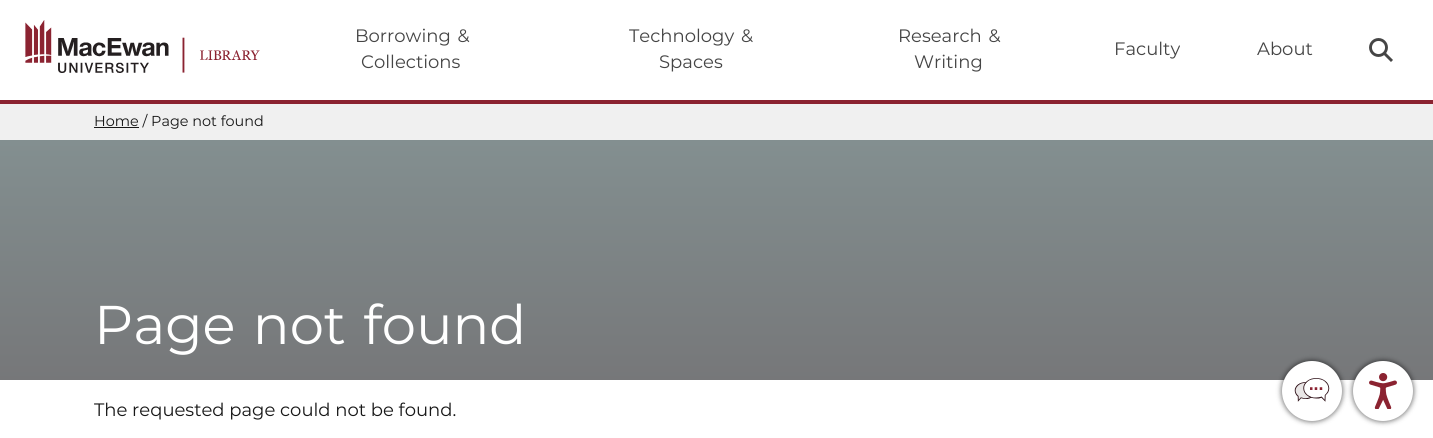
#include <cairo/cairo.h>
#include <math.h>
#include <stddef.h>

static cairo_t *cr;

static void use_color(int r, int g, int b) {
  cairo_set_source_rgb(cr, r / 255.0, g / 255.0, b / 255.0);
}

static void text(double x, double y, const char *s, const char *family, double size, int italic, int bold, int r, int g, int b) {
  cairo_select_font_face(cr, family, italic ? CAIRO_FONT_SLANT_ITALIC : CAIRO_FONT_SLANT_NORMAL,
    bold ? CAIRO_FONT_WEIGHT_BOLD : CAIRO_FONT_WEIGHT_NORMAL);
  cairo_set_font_size(cr, size);
  use_color(r, g, b);
  cairo_move_to(cr, x, y);
  cairo_show_text(cr, s);
}

static void spaced_text(double x, double y, const char *s, double letter, double word) {
  cairo_move_to(cr, x, y);
  while (*s) {
    char ch[5] = {0};
    int n = 0;
    do ch[n++] = *s++; while ((*s & 0xC0) == 0x80);
    cairo_show_text(cr, ch);
    cairo_rel_move_to(cr, letter + word * (*ch == ' '), 0);
  }
}

static void box(double x, double y, double w, double h, int r, int g, int b) {
  use_color(r, g, b);
  cairo_rectangle(cr, x, y, w, h);
  cairo_fill(cr);
}

static void round_rect(double x, double y, double w, double h, double r) {
  cairo_new_sub_path(cr);
  cairo_arc(cr, x + w - r, y + h - r, r, 0, M_PI / 2);
  cairo_arc(cr, x + r, y + h - r, r, M_PI / 2, M_PI);
  cairo_arc(cr, x + r, y + r, r, M_PI, 1.5 * M_PI);
  cairo_arc(cr, x + w - r, y + r, r, 1.5 * M_PI, 2 * M_PI);
  cairo_close_path(cr);
}

static void shadow(double x, double y, double w, double h, double r, double blur, double alpha) {
  cairo_push_group_with_content(cr, CAIRO_CONTENT_ALPHA);
  cairo_set_operator(cr, CAIRO_OPERATOR_SOURCE);
  for (int i = 15; i >= -15 && fmin(w, h) + blur * i / 3 > 0; i -= 2) {
    double e = blur * i / 6;
    cairo_set_source_rgba(cr, 0, 0, 0, alpha * erfc((i - 1) / 8.5) / 2);
    round_rect(x - e, y - e, w + 2 * e, h + 2 * e, fmax(0, fmin(r + e + blur * .6, fmin(w, h) / 2 + e)));
    cairo_fill(cr);
  }
  cairo_pattern_t *soft = cairo_pop_group(cr);
  cairo_mask(cr, soft);
  cairo_pattern_destroy(soft);
}

static void picture(const char *path, double x, double y, double w, double h) {
  cairo_surface_t *image = cairo_image_surface_create_from_png(path);
  cairo_save(cr);
  cairo_set_source_surface(cr, image, x, y);
  cairo_rectangle(cr, x, y, w, h);
  cairo_fill(cr);
  cairo_restore(cr);
  cairo_surface_destroy(image);
}

static void draw(void) {
  cairo_pattern_t *gradient;
  use_color(255, 255, 255);
  cairo_paint(cr);
  box(0, 100, 1433, 4, 139, 35, 49);
  picture("img_01.png", 25, 20, 235, 53);
  cairo_arc(cr, 1378.5, 47.5, 8, 0, 2 * M_PI);
  use_color(69, 69, 69);
  cairo_set_line_width(cr, 2.9);
  cairo_stroke(cr);
  cairo_new_path(cr);
  cairo_move_to(cr, 1384.5, 53.5);
  cairo_line_to(cr, 1392, 61);
  cairo_stroke(cr);
  box(0, 104, 1433, 36, 240, 240, 240);
  box(94, 127, 45, 1, 23, 23, 23);
  gradient = cairo_pattern_create_linear(717, 140, 717, 380);
  cairo_pattern_add_color_stop_rgba(gradient, 0, 0.514, 0.561, 0.565, 1);
  cairo_pattern_add_color_stop_rgba(gradient, 1, 0.463, 0.467, 0.475, 1);
  cairo_set_source(cr, gradient);
  cairo_pattern_destroy(gradient);
  cairo_rectangle(cr, 0, 140, 1433, 240);
  cairo_fill(cr);
  use_color(0, 0, 0);
  shadow(1281, 360, 62, 62, 31, 2.5, 0.5);
  use_color(255, 255, 255);
  cairo_arc(cr, 1312, 391, 30, 0, 2 * M_PI);
  cairo_fill(cr);
  picture("img_02.png", 1294, 378, 36, 24);
  use_color(0, 0, 0);
  shadow(1352, 360, 62, 62, 31, 2.5, 0.5);
  use_color(255, 255, 255);
  cairo_arc(cr, 1383, 391, 30, 0, 2 * M_PI);
  cairo_fill(cr);
  picture("img_03.png", 1369, 373, 28, 36);
  cairo_select_font_face(cr, "Montserrat", CAIRO_FONT_SLANT_NORMAL, CAIRO_FONT_WEIGHT_NORMAL);
  cairo_set_font_size(cr, 18);
  use_color(69, 69, 69);
  spaced_text(355, 42, "Borrowing &", 0, 2);
  text(361, 68, "Collections", "Montserrat", 18, 0, 0, 69, 69, 69);
  spaced_text(629, 42, "Technology &", 0, 2);
  text(659, 68, "Spaces", "Montserrat", 18, 0, 0, 69, 69, 69);
  spaced_text(898, 42, "Research &", 0, 2);
  text(914, 68, "Writing", "Montserrat", 18, 0, 0, 69, 69, 69);
  text(1114, 55, "Faculty", "Montserrat", 18, 0, 0, 69, 69, 69);
  text(1257, 55, "About", "Montserrat", 18, 0, 0, 69, 69, 69);
  text(94, 126, "Home / Page not found", "Montserrat", 14.4, 0, 0, 23, 23, 23);
  cairo_set_font_size(cr, 54.5);
  use_color(255, 255, 255);
  spaced_text(94, 344, "Page not found", 0, 3);
  text(94, 416, "The requested page could not be found.", "Montserrat", 18, 0, 0, 23, 23, 23);
}

int main(void) {
  cairo_surface_t *surface = cairo_image_surface_create(CAIRO_FORMAT_RGB24, 1433, 438);
  cr = cairo_create(surface);
  cairo_font_options_t *options = cairo_font_options_create();
  cairo_font_options_set_hint_metrics(options, CAIRO_HINT_METRICS_OFF);
  cairo_font_options_set_hint_style(options, CAIRO_HINT_STYLE_NONE);
  cairo_set_font_options(cr, options);
  cairo_set_miter_limit(cr, 4);
  draw();
  cairo_surface_write_to_png(surface, "out.png");
  cairo_font_options_destroy(options);
  cairo_destroy(cr);
  cairo_surface_destroy(surface);
  return 0;
}
